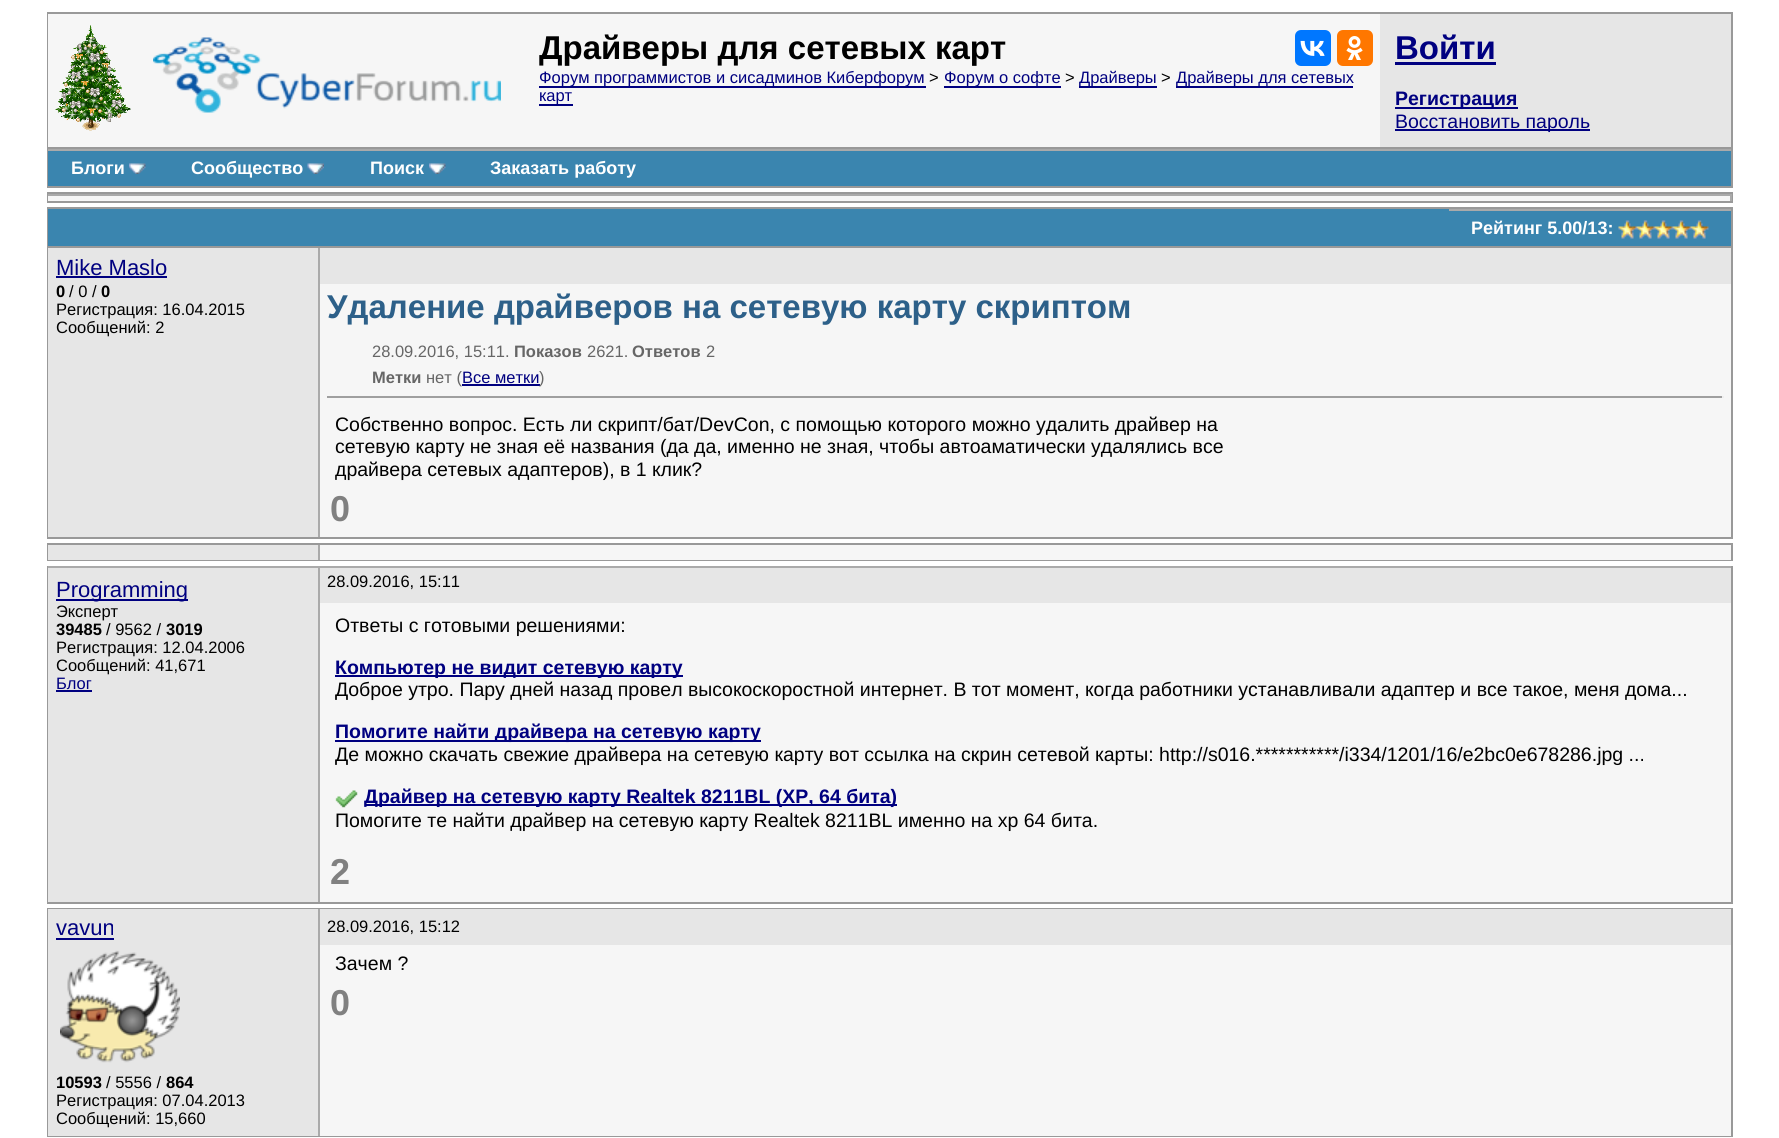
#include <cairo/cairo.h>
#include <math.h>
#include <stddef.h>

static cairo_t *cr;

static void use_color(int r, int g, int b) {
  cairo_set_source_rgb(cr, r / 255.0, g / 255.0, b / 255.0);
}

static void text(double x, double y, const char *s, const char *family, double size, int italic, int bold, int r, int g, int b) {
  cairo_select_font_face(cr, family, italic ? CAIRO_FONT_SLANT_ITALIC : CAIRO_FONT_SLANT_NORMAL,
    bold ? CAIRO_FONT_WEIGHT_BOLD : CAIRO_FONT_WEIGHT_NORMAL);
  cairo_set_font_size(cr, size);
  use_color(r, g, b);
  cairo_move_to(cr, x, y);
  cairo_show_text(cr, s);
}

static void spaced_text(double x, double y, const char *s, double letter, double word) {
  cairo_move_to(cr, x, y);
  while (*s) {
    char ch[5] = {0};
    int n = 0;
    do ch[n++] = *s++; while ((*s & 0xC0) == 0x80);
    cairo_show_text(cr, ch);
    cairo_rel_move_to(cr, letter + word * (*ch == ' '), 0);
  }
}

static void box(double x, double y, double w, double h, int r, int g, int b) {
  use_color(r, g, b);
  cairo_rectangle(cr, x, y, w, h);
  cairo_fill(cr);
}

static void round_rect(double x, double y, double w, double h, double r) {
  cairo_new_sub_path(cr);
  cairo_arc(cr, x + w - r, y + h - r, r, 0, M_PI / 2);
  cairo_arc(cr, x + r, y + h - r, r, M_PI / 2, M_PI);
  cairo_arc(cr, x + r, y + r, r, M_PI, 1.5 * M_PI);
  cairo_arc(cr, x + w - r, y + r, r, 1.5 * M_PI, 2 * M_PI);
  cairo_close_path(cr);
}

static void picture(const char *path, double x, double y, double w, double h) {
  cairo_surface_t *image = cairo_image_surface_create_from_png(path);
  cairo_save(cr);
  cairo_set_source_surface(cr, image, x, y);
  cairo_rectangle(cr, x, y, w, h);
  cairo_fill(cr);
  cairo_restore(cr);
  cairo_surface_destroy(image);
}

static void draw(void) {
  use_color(255, 255, 255);
  cairo_paint(cr);
  cairo_rectangle(cr, 48, 13, 1684, 135);
  use_color(153, 153, 153);
  cairo_stroke(cr);
  box(48, 14, 1332, 133, 246, 246, 246);
  picture("img_01.png", 55, 25, 76, 106);
  picture("img_02.png", 153, 37, 348, 76);
  use_color(0, 119, 255);
  round_rect(1295, 30, 36, 36, 6);
  cairo_fill(cr);
  picture("img_03.png", 1300, 40, 25, 16);
  use_color(255, 119, 0);
  round_rect(1337, 30, 36, 36, 6);
  cairo_fill(cr);
  picture("img_04.png", 1346, 36, 17, 24);
  box(539, 86, 387, 2, 0, 0, 128);
  box(944, 86, 117, 2, 0, 0, 128);
  box(1079, 86, 78, 2, 0, 0, 128);
  box(1176, 86, 177, 2, 0, 0, 128);
  box(539, 104, 34, 2, 0, 0, 128);
  box(1380, 14, 351, 133, 230, 230, 230);
  box(1395, 62, 101, 3, 0, 0, 128);
  box(1395, 107, 123, 2, 0, 0, 128);
  box(1395, 129, 195, 2, 0, 0, 128);
  box(1731, 149, 2, 39, 153, 153, 153);
  box(47, 186, 1686, 2, 153, 153, 153);
  box(47, 149, 2, 39, 153, 153, 153);
  box(48, 151, 1683, 35, 58, 133, 175);
  box(48, 149, 1683, 2, 170, 170, 170);
  picture("img_05.png", 129, 163, 17, 11);
  picture("img_06.png", 307, 163, 17, 11);
  picture("img_07.png", 429, 163, 17, 11);
  cairo_rectangle(cr, 48, 193, 1684, 9);
  use_color(153, 153, 153);
  cairo_stroke(cr);
  box(48, 196, 1683, 5, 246, 246, 246);
  box(48, 194, 1683, 2, 170, 170, 170);
  box(1730, 194, 2, 7, 170, 170, 170);
  box(47, 207, 1686, 2, 153, 153, 153);
  box(1731, 207, 2, 39, 153, 153, 153);
  box(47, 207, 2, 39, 153, 153, 153);
  box(48, 209, 1401, 37, 58, 133, 175);
  box(1449, 211, 282, 35, 58, 133, 175);
  box(1449, 209, 282, 2, 170, 170, 170);
  picture("img_08.png", 1618, 220, 91, 19);
  cairo_rectangle(cr, 48, 247, 1684, 291);
  use_color(153, 153, 153);
  cairo_stroke(cr);
  box(48, 248, 270, 289, 230, 230, 230);
  box(318, 248, 2, 289, 170, 170, 170);
  box(56, 276, 111, 2, 0, 0, 128);
  box(320, 248, 1411, 36, 230, 230, 230);
  box(320, 284, 1411, 253, 246, 246, 246);
  box(462, 384, 78, 2, 0, 0, 128);
  box(327, 396, 1397, 2, 159, 159, 159);
  box(1722, 396, 2, 2, 238, 238, 238);
  cairo_rectangle(cr, 48, 544, 1684, 16);
  use_color(153, 153, 153);
  cairo_stroke(cr);
  box(48, 545, 270, 15, 230, 230, 230);
  box(318, 545, 2, 15, 170, 170, 170);
  box(320, 545, 1411, 15, 246, 246, 246);
  box(1731, 566, 2, 337, 153, 153, 153);
  box(47, 902, 1686, 2, 153, 153, 153);
  box(47, 566, 2, 337, 153, 153, 153);
  box(48, 568, 270, 334, 230, 230, 230);
  box(48, 566, 1683, 2, 170, 170, 170);
  box(318, 566, 2, 336, 170, 170, 170);
  box(56, 599, 132, 2, 0, 0, 128);
  box(56, 690, 36, 2, 0, 0, 128);
  box(320, 568, 1411, 35, 230, 230, 230);
  box(320, 603, 1411, 299, 246, 246, 246);
  box(335, 675, 348, 2, 0, 0, 128);
  box(335, 740, 426, 2, 0, 0, 128);
  picture("img_09.png", 335, 790, 23, 18);
  box(365, 804, 532, 2, 0, 0, 128);
  cairo_rectangle(cr, 48, 909, 1684, 227);
  use_color(153, 153, 153);
  cairo_stroke(cr);
  box(48, 909, 270, 227, 230, 230, 230);
  box(318, 909, 2, 227, 170, 170, 170);
  box(56, 938, 58, 2, 0, 0, 128);
  picture("img_10.png", 60, 950, 120, 113);
  box(320, 909, 1411, 36, 230, 230, 230);
  box(320, 945, 1411, 191, 246, 246, 246);
  text(539, 59, "Драйверы для сетевых карт", "Liberation Sans", 33, 0, 1, 0, 0, 0);
  text(539, 83, "Форум программистов и сисадминов Киберфорум", "Liberation Sans", 16.5, 0, 0, 0, 0, 128);
  text(929, 83, ">", "Liberation Sans", 16.5, 0, 0, 0, 0, 0);
  text(944, 83, "Форум о софте", "Liberation Sans", 16.5, 0, 0, 0, 0, 128);
  text(1065, 83, ">", "Liberation Sans", 16.5, 0, 0, 0, 0, 0);
  text(1079, 83, "Драйверы", "Liberation Sans", 16.5, 0, 0, 0, 0, 128);
  text(1161, 83, ">", "Liberation Sans", 16.5, 0, 0, 0, 0, 0);
  text(1176, 83, "Драйверы для сетевых", "Liberation Sans", 16.5, 0, 0, 0, 0, 128);
  text(539, 101, "карт", "Liberation Sans", 16.5, 0, 0, 0, 0, 128);
  text(1395, 59, "Войти", "Liberation Sans", 33, 0, 1, 0, 0, 128);
  text(1395, 105, "Регистрация", "Liberation Sans", 19.5, 0, 1, 0, 0, 128);
  text(1395, 128, "Восстановить пароль", "Liberation Sans", 19.5, 0, 0, 0, 0, 128);
  text(71, 174, "Блоги", "Liberation Sans", 18, 0, 1, 255, 255, 255);
  text(191, 174, "Сообщество", "Liberation Sans", 18, 0, 1, 255, 255, 255);
  text(370, 174, "Поиск", "Liberation Sans", 18, 0, 1, 255, 255, 255);
  text(490, 174, "Заказать работу", "Liberation Sans", 18, 0, 1, 255, 255, 255);
  text(1471, 234, "Рейтинг 5.00/13:", "Liberation Sans", 18, 0, 1, 255, 255, 255);
  text(56, 275, "Mike Maslo", "Liberation Sans", 22, 0, 0, 0, 0, 128);
  text(56, 297, "0", "Liberation Sans", 16.5, 0, 1, 0, 0, 0);
  text(69, 297, "/ 0 /", "Liberation Sans", 16.5, 0, 0, 0, 0, 0);
  text(101, 297, "0", "Liberation Sans", 16.5, 0, 1, 0, 0, 0);
  text(56, 315, "Регистрация: 16.04.2015", "Liberation Sans", 16.5, 0, 0, 0, 0, 0);
  text(56, 333, "Сообщений: 2", "Liberation Sans", 16.5, 0, 0, 0, 0, 0);
  text(327, 318, "Удаление драйверов на сетевую карту скриптом", "Liberation Sans", 33, 0, 1, 45, 96, 137);
  text(372, 357, "28.09.2016, 15:11.", "Liberation Sans", 16.5, 0, 0, 102, 102, 102);
  text(514, 357, "Показов", "Liberation Sans", 16.5, 0, 1, 102, 102, 102);
  text(587, 357, "2621.", "Liberation Sans", 16.5, 0, 0, 102, 102, 102);
  text(632, 357, "Ответов", "Liberation Sans", 16.5, 0, 1, 102, 102, 102);
  text(706, 357, "2", "Liberation Sans", 16.5, 0, 0, 102, 102, 102);
  text(372, 383, "Метки", "Liberation Sans", 16.5, 0, 1, 102, 102, 102);
  text(426, 383, "нет (", "Liberation Sans", 16.5, 0, 0, 102, 102, 102);
  text(462, 383, "Все метки", "Liberation Sans", 16.5, 0, 0, 0, 0, 128);
  text(539, 383, ")", "Liberation Sans", 16.5, 0, 0, 102, 102, 102);
  text(335, 431, "Собственно вопрос. Есть ли скрипт/бат/DevCon, с помощью которого можно удалить драйвер на", "Liberation Sans", 19.5, 0, 0, 0, 0, 0);
  text(335, 453, "сетевую карту не зная её названия (да да, именно не зная, чтобы автоаматически удалялись все", "Liberation Sans", 19.5, 0, 0, 0, 0, 0);
  text(335, 476, "драйвера сетевых адаптеров), в 1 клик?", "Liberation Sans", 19.5, 0, 0, 0, 0, 0);
  cairo_select_font_face(cr, "Liberation Sans", CAIRO_FONT_SLANT_NORMAL, CAIRO_FONT_WEIGHT_BOLD);
  cairo_set_font_size(cr, 36);
  use_color(128, 128, 128);
  spaced_text(330, 521, "0", -2, 0);
  text(56, 597, "Programming", "Liberation Sans", 22, 0, 0, 0, 0, 128);
  text(56, 617, "Эксперт", "Liberation Sans", 16.5, 0, 0, 0, 0, 0);
  text(56, 635, "39485", "Liberation Sans", 16.5, 0, 1, 0, 0, 0);
  text(106, 635, "/ 9562 /", "Liberation Sans", 16.5, 0, 0, 0, 0, 0);
  text(166, 635, "3019", "Liberation Sans", 16.5, 0, 1, 0, 0, 0);
  text(56, 653, "Регистрация: 12.04.2006", "Liberation Sans", 16.5, 0, 0, 0, 0, 0);
  text(56, 671, "Сообщений: 41,671", "Liberation Sans", 16.5, 0, 0, 0, 0, 0);
  text(56, 689, "Блог", "Liberation Sans", 16.5, 0, 0, 0, 0, 128);
  text(327, 587, "28.09.2016, 15:11", "Liberation Sans", 16.5, 0, 0, 0, 0, 0);
  text(335, 632, "Ответы с готовыми решениями:", "Liberation Sans", 19.5, 0, 0, 0, 0, 0);
  text(335, 674, "Компьютер не видит сетевую карту", "Liberation Sans", 19.5, 0, 1, 0, 0, 128);
  text(335, 696, "Доброе утро. Пару дней назад провел высокоскоростной интернет. В тот момент, когда работники устанавливали адаптер и все такое, меня дома...", "Liberation Sans", 19.5, 0, 0, 0, 0, 0);
  text(335, 738, "Помогите найти драйвера на сетевую карту", "Liberation Sans", 19.5, 0, 1, 0, 0, 128);
  text(335, 761, "Де можно скачать свежие драйвера на сетевую карту вот ссылка на скрин сетевой карты: http://s016.***********/i334/1201/16/e2bc0e678286.jpg ...", "Liberation Sans", 19.5, 0, 0, 0, 0, 0);
  text(364, 803, "Драйвер на сетевую карту Realtek 8211BL (XP, 64 бита)", "Liberation Sans", 19.5, 0, 1, 0, 0, 128);
  text(335, 827, "Помогите те найти драйвер на сетевую карту Realtek 8211BL именно на хр 64 бита.", "Liberation Sans", 19.5, 0, 0, 0, 0, 0);
  cairo_select_font_face(cr, "Liberation Sans", CAIRO_FONT_SLANT_NORMAL, CAIRO_FONT_WEIGHT_BOLD);
  cairo_set_font_size(cr, 36);
  use_color(128, 128, 128);
  spaced_text(330, 884, "2", -2, 0);
  text(56, 935, "vavun", "Liberation Sans", 22, 0, 0, 0, 0, 128);
  text(56, 1088, "10593", "Liberation Sans", 16.5, 0, 1, 0, 0, 0);
  text(106, 1088, "/ 5556 /", "Liberation Sans", 16.5, 0, 0, 0, 0, 0);
  text(166, 1088, "864", "Liberation Sans", 16.5, 0, 1, 0, 0, 0);
  text(56, 1106, "Регистрация: 07.04.2013", "Liberation Sans", 16.5, 0, 0, 0, 0, 0);
  text(56, 1124, "Сообщений: 15,660", "Liberation Sans", 16.5, 0, 0, 0, 0, 0);
  text(327, 932, "28.09.2016, 15:12", "Liberation Sans", 16.5, 0, 0, 0, 0, 0);
  text(335, 970, "Зачем ?", "Liberation Sans", 19.5, 0, 0, 0, 0, 0);
  cairo_select_font_face(cr, "Liberation Sans", CAIRO_FONT_SLANT_NORMAL, CAIRO_FONT_WEIGHT_BOLD);
  cairo_set_font_size(cr, 36);
  use_color(128, 128, 128);
  spaced_text(330, 1015, "0", -2, 0);
}

int main(void) {
  cairo_surface_t *surface = cairo_image_surface_create(CAIRO_FORMAT_RGB24, 1779, 1138);
  cr = cairo_create(surface);
  cairo_font_options_t *options = cairo_font_options_create();
  cairo_font_options_set_hint_metrics(options, CAIRO_HINT_METRICS_OFF);
  cairo_font_options_set_hint_style(options, CAIRO_HINT_STYLE_NONE);
  cairo_set_font_options(cr, options);
  cairo_set_miter_limit(cr, 4);
  draw();
  cairo_surface_write_to_png(surface, "out.png");
  cairo_font_options_destroy(options);
  cairo_destroy(cr);
  cairo_surface_destroy(surface);
  return 0;
}
